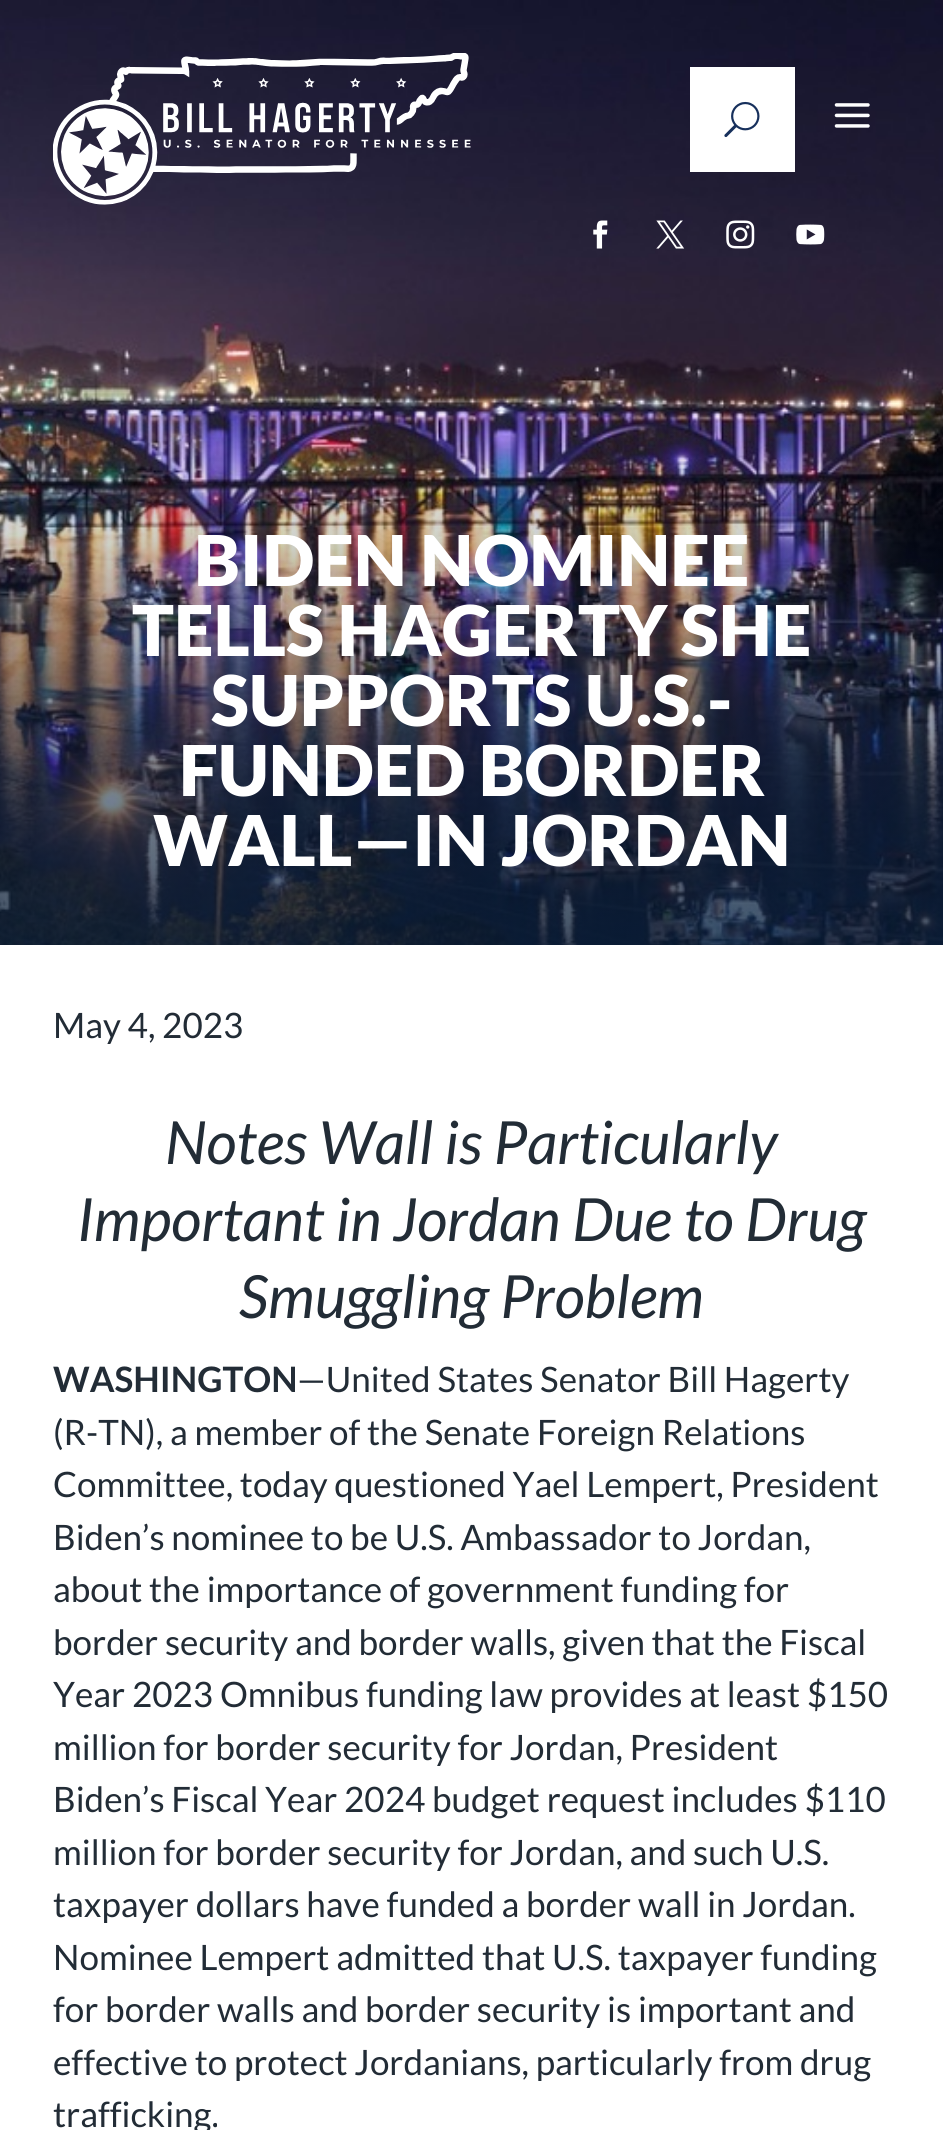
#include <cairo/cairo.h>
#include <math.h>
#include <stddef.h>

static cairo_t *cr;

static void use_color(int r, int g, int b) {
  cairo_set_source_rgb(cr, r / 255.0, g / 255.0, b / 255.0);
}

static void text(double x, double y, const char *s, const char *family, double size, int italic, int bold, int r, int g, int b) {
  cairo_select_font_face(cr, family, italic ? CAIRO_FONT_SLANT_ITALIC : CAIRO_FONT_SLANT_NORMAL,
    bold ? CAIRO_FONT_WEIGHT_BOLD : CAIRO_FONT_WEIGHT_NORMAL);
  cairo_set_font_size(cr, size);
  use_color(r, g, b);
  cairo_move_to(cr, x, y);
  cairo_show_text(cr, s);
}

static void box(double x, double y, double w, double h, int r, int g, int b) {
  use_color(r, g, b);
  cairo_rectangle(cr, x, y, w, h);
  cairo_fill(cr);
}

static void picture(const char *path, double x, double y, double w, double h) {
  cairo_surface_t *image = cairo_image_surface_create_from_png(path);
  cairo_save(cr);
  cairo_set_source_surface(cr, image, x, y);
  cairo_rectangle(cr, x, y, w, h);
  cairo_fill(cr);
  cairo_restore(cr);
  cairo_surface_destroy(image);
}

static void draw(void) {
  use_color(255, 255, 255);
  cairo_paint(cr);
  picture("img_08.png", 0, 0, 943, 945);
  picture("img_01.png", 53, 53, 418, 152);
  box(690, 67, 105, 105, 255, 255, 255);
  picture("img_02.png", 724, 101, 36, 37);
  picture("img_03.png", 834, 103, 36, 25);
  picture("img_04.png", 593, 220, 15, 29);
  picture("img_05.png", 656, 220, 29, 29);
  picture("img_06.png", 726, 220, 29, 29);
  picture("img_07.png", 796, 224, 29, 21);
  text(194, 586, "BIDEN NOMINEE", "Lato Black", 70, 0, 0, 255, 255, 255);
  text(132, 656, "TELLS HAGERTY SHE", "Lato Black", 70, 0, 0, 255, 255, 255);
  text(211, 726, "SUPPORTS U.S.-", "Lato Black", 70, 0, 0, 255, 255, 255);
  text(179, 796, "FUNDED BORDER", "Lato Black", 70, 0, 0, 255, 255, 255);
  text(153, 866, "WALL—IN JORDAN", "Lato Black", 70, 0, 0, 255, 255, 255);
  text(53, 1038, "May 4, 2023", "Lato", 35, 0, 0, 34, 44, 54);
  text(165, 1164, "Notes Wall is Particularly", "Lato", 59.5, 1, 0, 34, 44, 54);
  text(77, 1241, "Important in Jordan Due to Drug", "Lato", 59.5, 1, 0, 34, 44, 54);
  text(239, 1318, "Smuggling Problem", "Lato", 59.5, 1, 0, 34, 44, 54);
  text(53, 1392, "WASHINGTON", "Lato", 35, 0, 1, 34, 44, 54);
  text(297, 1392, "—United States Senator Bill Hagerty", "Lato", 35, 0, 0, 34, 44, 54);
  text(53, 1445, "(R-TN), a member of the Senate Foreign Relations", "Lato", 35, 0, 0, 34, 44, 54);
  text(53, 1497, "Committee, today questioned Yael Lempert, President", "Lato", 35, 0, 0, 34, 44, 54);
  text(53, 1550, "Biden’s nominee to be U.S. Ambassador to Jordan,", "Lato", 35, 0, 0, 34, 44, 54);
  text(53, 1602, "about the importance of government funding for", "Lato", 35, 0, 0, 34, 44, 54);
  text(53, 1655, "border security and border walls, given that the Fiscal", "Lato", 35, 0, 0, 34, 44, 54);
  text(53, 1707, "Year 2023 Omnibus funding law provides at least $150", "Lato", 35, 0, 0, 34, 44, 54);
  text(53, 1760, "million for border security for Jordan, President", "Lato", 35, 0, 0, 34, 44, 54);
  text(53, 1812, "Biden’s Fiscal Year 2024 budget request includes $110", "Lato", 35, 0, 0, 34, 44, 54);
  text(53, 1865, "million for border security for Jordan, and such U.S.", "Lato", 35, 0, 0, 34, 44, 54);
  text(53, 1917, "taxpayer dollars have funded a border wall in Jordan.", "Lato", 35, 0, 0, 34, 44, 54);
  text(53, 1970, "Nominee Lempert admitted that U.S. taxpayer funding", "Lato", 35, 0, 0, 34, 44, 54);
  text(53, 2022, "for border walls and border security is important and", "Lato", 35, 0, 0, 34, 44, 54);
  text(53, 2075, "effective to protect Jordanians, particularly from drug", "Lato", 35, 0, 0, 34, 44, 54);
  text(53, 2127, "trafficking.", "Lato", 35, 0, 0, 34, 44, 54);
}

int main(void) {
  cairo_surface_t *surface = cairo_image_surface_create(CAIRO_FORMAT_RGB24, 943, 2130);
  cr = cairo_create(surface);
  cairo_font_options_t *options = cairo_font_options_create();
  cairo_font_options_set_hint_metrics(options, CAIRO_HINT_METRICS_OFF);
  cairo_font_options_set_hint_style(options, CAIRO_HINT_STYLE_NONE);
  cairo_set_font_options(cr, options);
  cairo_set_miter_limit(cr, 4);
  draw();
  cairo_surface_write_to_png(surface, "out.png");
  cairo_font_options_destroy(options);
  cairo_destroy(cr);
  cairo_surface_destroy(surface);
  return 0;
}
